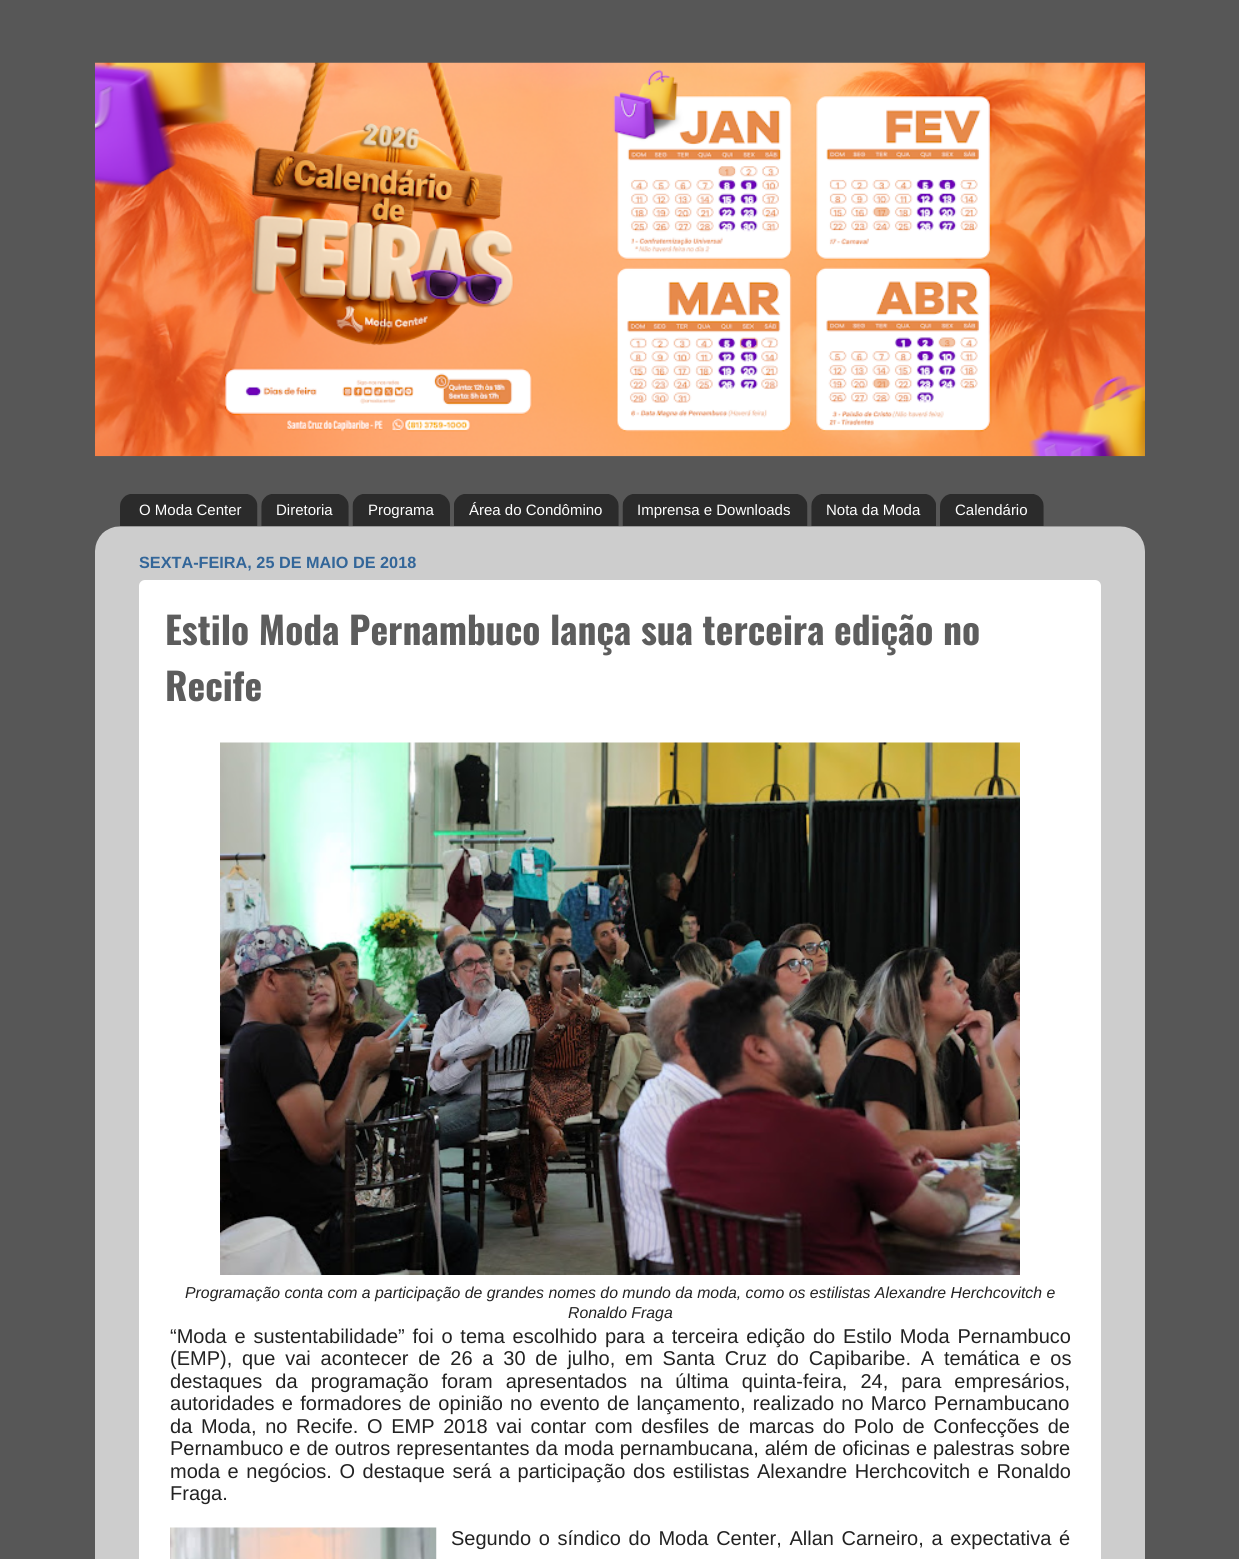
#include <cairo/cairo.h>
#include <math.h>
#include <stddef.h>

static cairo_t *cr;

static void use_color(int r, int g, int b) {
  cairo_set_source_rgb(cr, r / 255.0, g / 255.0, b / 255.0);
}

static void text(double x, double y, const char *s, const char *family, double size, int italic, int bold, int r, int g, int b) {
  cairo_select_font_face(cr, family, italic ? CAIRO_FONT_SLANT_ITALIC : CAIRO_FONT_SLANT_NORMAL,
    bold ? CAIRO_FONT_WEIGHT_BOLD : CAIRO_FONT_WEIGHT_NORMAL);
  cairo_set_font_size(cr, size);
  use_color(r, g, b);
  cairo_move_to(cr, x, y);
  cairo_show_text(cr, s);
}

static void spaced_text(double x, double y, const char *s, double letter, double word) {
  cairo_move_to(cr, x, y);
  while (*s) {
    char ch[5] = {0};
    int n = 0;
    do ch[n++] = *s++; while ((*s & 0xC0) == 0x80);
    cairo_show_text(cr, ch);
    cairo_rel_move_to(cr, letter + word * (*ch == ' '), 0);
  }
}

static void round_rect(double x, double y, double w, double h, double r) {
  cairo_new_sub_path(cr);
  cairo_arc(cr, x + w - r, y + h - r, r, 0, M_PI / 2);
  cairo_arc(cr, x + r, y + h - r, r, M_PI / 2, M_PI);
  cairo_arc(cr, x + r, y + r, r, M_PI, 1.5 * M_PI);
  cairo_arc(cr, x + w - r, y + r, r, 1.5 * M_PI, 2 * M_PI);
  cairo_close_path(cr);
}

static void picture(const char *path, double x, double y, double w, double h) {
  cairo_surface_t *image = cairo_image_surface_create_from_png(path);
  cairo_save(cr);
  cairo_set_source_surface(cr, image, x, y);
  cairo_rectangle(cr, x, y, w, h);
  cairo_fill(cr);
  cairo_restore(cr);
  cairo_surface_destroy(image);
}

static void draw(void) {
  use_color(87, 87, 87);
  cairo_paint(cr);
  picture("img_01.png", 95, 62, 1050, 395);
  picture("img_02.png", 120, 494, 138, 32);
  picture("img_03.png", 261, 494, 88, 32);
  picture("img_04.png", 352, 494, 98, 32);
  picture("img_05.png", 454, 494, 165, 32);
  picture("img_06.png", 622, 494, 186, 32);
  picture("img_07.png", 811, 494, 125, 32);
  picture("img_08.png", 940, 494, 104, 32);
  picture("img_09.png", 95, 526, 1050, 1033);
  use_color(255, 255, 255);
  round_rect(139, 580, 962, 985, 6);
  cairo_fill(cr);
  picture("img_10.png", 220, 742, 800, 533);
  picture("img_11.png", 170, 1527, 267, 32);
  text(139, 515, "O Moda Center", "Liberation Sans", 15, 0, 0, 255, 255, 255);
  text(276, 515, "Diretoria", "Liberation Sans", 15, 0, 0, 255, 255, 255);
  text(368, 515, "Programa", "Liberation Sans", 15, 0, 0, 255, 255, 255);
  text(469, 515, "Área do Condômino", "Liberation Sans", 15, 0, 0, 255, 255, 255);
  text(637, 515, "Imprensa e Downloads", "Liberation Sans", 15, 0, 0, 255, 255, 255);
  text(826, 515, "Nota da Moda", "Liberation Sans", 15, 0, 0, 255, 255, 255);
  text(955, 515, "Calendário", "Liberation Sans", 15, 0, 0, 255, 255, 255);
  text(139, 568, "SEXTA-FEIRA, 25 DE MAIO DE 2018", "Liberation Sans", 16.25, 0, 1, 51, 102, 153);
  text(165, 645, "Estilo Moda Pernambuco lança sua terceira edição no", "Oswald", 37.5, 0, 1, 93, 93, 93);
  text(165, 701, "Recife", "Oswald", 37.5, 0, 1, 93, 93, 93);
  text(185, 1298, "Programação conta com a participação de grandes nomes do mundo da moda, como os estilistas Alexandre Herchcovitch e", "Liberation Sans", 15.83, 1, 0, 34, 34, 34);
  text(568, 1318, "Ronaldo Fraga", "Liberation Sans", 15.83, 1, 0, 34, 34, 34);
  cairo_select_font_face(cr, "Liberation Sans", CAIRO_FONT_SLANT_NORMAL, CAIRO_FONT_WEIGHT_NORMAL);
  cairo_set_font_size(cr, 20);
  spaced_text(170, 1343, "“Moda e sustentabilidade” foi o tema escolhido para a terceira edição do Estilo Moda Pernambuco", 0, 2.25);
  spaced_text(170, 1365, "(EMP), que vai acontecer de 26 a 30 de julho, em Santa Cruz do Capibaribe. A temática e os", 0, 4.25);
  spaced_text(170, 1388, "destaques da programação foram apresentados na última quinta-feira, 24, para empresários,", 0, 7.5);
  spaced_text(170, 1410, "autoridades e formadores de opinião no evento de lançamento, realizado no Marco Pernambucano", 0, 1.75);
  spaced_text(170, 1433, "da Moda, no Recife. O EMP 2018 vai contar com desfiles de marcas do Polo de Confecções de", 0, 3.1);
  spaced_text(170, 1455, "Pernambuco e de outros representantes da moda pernambucana, além de oficinas e palestras sobre", 0, 0.4);
  spaced_text(170, 1478, "moda e negócios. O destaque será a participação dos estilistas Alexandre Herchcovitch e Ronaldo", 0, 2);
  text(170, 1500, "Fraga.", "Liberation Sans", 20, 0, 0, 34, 34, 34);
  spaced_text(451, 1545, "Segundo o síndico do Moda Center, Allan Carneiro, a expectativa é", 0, 2.1);
}

int main(void) {
  cairo_surface_t *surface = cairo_image_surface_create(CAIRO_FORMAT_RGB24, 1239, 1559);
  cr = cairo_create(surface);
  cairo_font_options_t *options = cairo_font_options_create();
  cairo_font_options_set_hint_metrics(options, CAIRO_HINT_METRICS_OFF);
  cairo_font_options_set_hint_style(options, CAIRO_HINT_STYLE_NONE);
  cairo_set_font_options(cr, options);
  cairo_set_miter_limit(cr, 4);
  draw();
  cairo_surface_write_to_png(surface, "out.png");
  cairo_font_options_destroy(options);
  cairo_destroy(cr);
  cairo_surface_destroy(surface);
  return 0;
}
